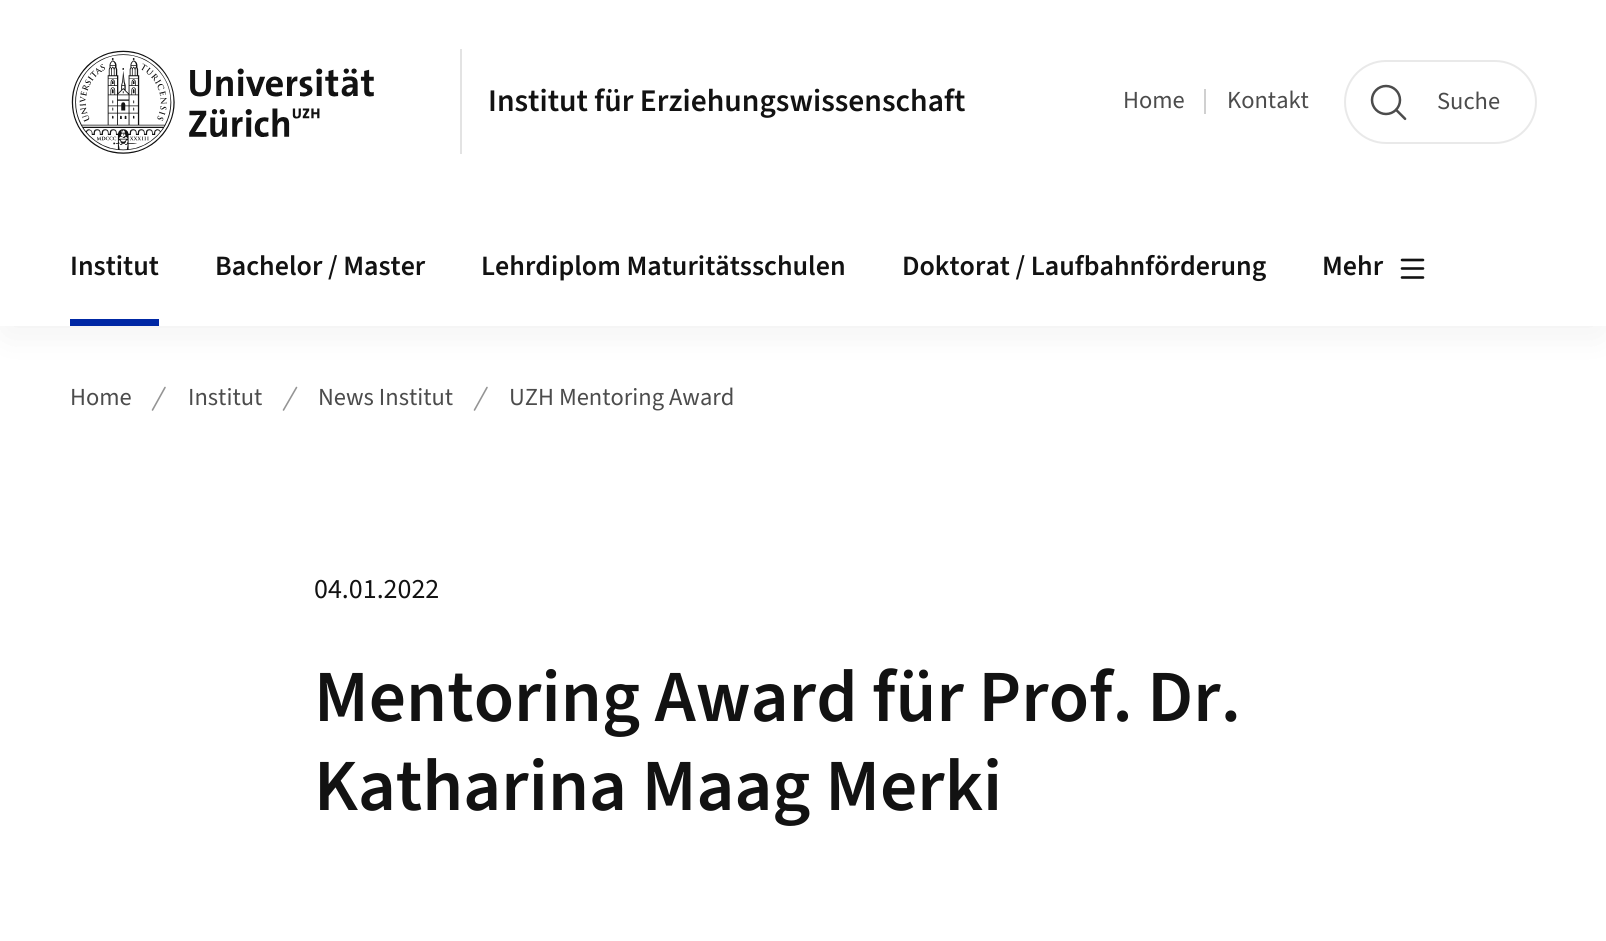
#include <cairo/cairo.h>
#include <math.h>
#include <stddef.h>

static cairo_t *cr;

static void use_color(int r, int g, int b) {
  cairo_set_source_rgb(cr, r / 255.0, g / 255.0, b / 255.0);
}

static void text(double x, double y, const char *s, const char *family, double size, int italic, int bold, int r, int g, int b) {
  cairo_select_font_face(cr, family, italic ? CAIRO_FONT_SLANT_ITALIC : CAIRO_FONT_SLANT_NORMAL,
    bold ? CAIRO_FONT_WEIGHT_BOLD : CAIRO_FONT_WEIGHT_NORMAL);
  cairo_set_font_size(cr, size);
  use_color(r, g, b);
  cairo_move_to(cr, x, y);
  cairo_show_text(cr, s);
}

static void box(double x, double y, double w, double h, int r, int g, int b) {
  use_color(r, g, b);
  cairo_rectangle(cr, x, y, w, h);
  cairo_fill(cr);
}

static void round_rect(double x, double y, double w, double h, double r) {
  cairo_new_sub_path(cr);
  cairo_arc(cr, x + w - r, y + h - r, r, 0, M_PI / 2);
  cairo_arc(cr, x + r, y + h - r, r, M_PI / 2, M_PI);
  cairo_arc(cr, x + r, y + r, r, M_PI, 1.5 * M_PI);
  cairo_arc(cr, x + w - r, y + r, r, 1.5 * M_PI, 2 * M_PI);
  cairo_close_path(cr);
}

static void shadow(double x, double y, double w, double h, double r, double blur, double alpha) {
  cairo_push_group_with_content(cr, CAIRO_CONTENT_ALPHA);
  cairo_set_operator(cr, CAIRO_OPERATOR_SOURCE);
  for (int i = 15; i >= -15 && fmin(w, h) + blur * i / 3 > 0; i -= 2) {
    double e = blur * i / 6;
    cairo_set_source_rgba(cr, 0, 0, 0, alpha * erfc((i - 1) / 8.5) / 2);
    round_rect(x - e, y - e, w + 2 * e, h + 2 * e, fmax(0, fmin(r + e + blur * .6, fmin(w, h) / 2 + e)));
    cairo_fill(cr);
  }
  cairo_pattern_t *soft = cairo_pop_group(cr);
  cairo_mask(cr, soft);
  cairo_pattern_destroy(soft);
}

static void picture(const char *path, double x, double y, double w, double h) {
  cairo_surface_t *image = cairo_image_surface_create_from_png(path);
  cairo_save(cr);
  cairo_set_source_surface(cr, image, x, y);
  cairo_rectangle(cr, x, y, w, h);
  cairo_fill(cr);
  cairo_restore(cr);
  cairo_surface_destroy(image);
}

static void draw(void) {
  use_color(255, 255, 255);
  cairo_paint(cr);
  cairo_new_path(cr);
  cairo_move_to(cr, 152.5, 410);
  cairo_line_to(cr, 165, 387.5);
  use_color(148, 148, 148);
  cairo_set_line_width(cr, 1.6);
  cairo_set_line_cap(cr, CAIRO_LINE_CAP_ROUND);
  cairo_stroke(cr);
  cairo_new_path(cr);
  cairo_move_to(cr, 283.5, 410);
  cairo_line_to(cr, 296.5, 387.5);
  cairo_stroke(cr);
  cairo_new_path(cr);
  cairo_move_to(cr, 474.5, 410);
  cairo_line_to(cr, 487, 387.5);
  cairo_stroke(cr);
  use_color(18, 18, 18);
  shadow(7, 19, 1593, 312, 0, 19, 0.07);
  box(0, 0, 1606, 326, 255, 255, 255);
  picture("img_01.png", 71, 50, 303, 104);
  box(460, 49, 2, 105, 227, 227, 227);
  box(1204, 89, 2, 25, 208, 208, 208);
  round_rect(1345, 61, 191, 82, 41);
  use_color(233, 233, 233);
  cairo_set_line_width(cr, 2);
  cairo_set_line_cap(cr, CAIRO_LINE_CAP_BUTT);
  cairo_stroke(cr);
  picture("img_02.png", 1370, 84, 37, 37);
  box(70, 319, 89, 7, 0, 40, 165);
  cairo_new_path(cr);
  cairo_move_to(cr, 1402, 260);
  cairo_line_to(cr, 1423, 260);
  cairo_move_to(cr, 1402, 268.5);
  cairo_line_to(cr, 1423, 268.5);
  cairo_move_to(cr, 1402, 277.5);
  cairo_line_to(cr, 1423, 277.5);
  use_color(18, 18, 18);
  cairo_set_line_width(cr, 2.6);
  cairo_set_line_cap(cr, CAIRO_LINE_CAP_ROUND);
  cairo_set_line_join(cr, CAIRO_LINE_JOIN_ROUND);
  cairo_stroke(cr);
  text(488, 111, "Institut für Erziehungswissenschaft", "Source Sans 3 SemiBold", 31.5, 0, 0, 18, 18, 18);
  text(1123, 108, "Home", "Source Sans 3", 24.5, 0, 0, 76, 76, 76);
  text(1227, 108, "Kontakt", "Source Sans 3", 24.5, 0, 0, 76, 76, 76);
  text(1437, 109, "Suche", "Source Sans 3", 24.5, 0, 0, 76, 76, 76);
  text(70, 275, "Institut", "Source Sans 3 SemiBold", 28, 0, 0, 18, 18, 18);
  text(215, 275, "Bachelor / Master", "Source Sans 3 SemiBold", 28, 0, 0, 18, 18, 18);
  text(481, 275, "Lehrdiplom Maturitätsschulen", "Source Sans 3 SemiBold", 28, 0, 0, 18, 18, 18);
  text(902, 275, "Doktorat / Laufbahnförderung", "Source Sans 3 SemiBold", 28, 0, 0, 18, 18, 18);
  text(1322, 275, "Mehr", "Source Sans 3 SemiBold", 28, 0, 0, 18, 18, 18);
  text(70, 405, "Home", "Source Sans 3", 24.5, 0, 0, 76, 76, 76);
  text(188, 405, "Institut", "Source Sans 3", 24.5, 0, 0, 76, 76, 76);
  text(318, 405, "News Institut", "Source Sans 3", 24.5, 0, 0, 76, 76, 76);
  text(509, 405, "UZH Mentoring Award", "Source Sans 3", 24.5, 0, 0, 76, 76, 76);
  text(314, 598, "04.01.2022", "Source Sans 3", 28, 0, 0, 18, 18, 18);
  text(314, 721, "Mentoring Award für Prof. Dr.", "Source Sans 3 SemiBold", 73.5, 0, 0, 18, 18, 18);
  text(314, 810, "Katharina Maag Merki", "Source Sans 3 SemiBold", 73.5, 0, 0, 18, 18, 18);
}

int main(void) {
  cairo_surface_t *surface = cairo_image_surface_create(CAIRO_FORMAT_RGB24, 1606, 941);
  cr = cairo_create(surface);
  cairo_font_options_t *options = cairo_font_options_create();
  cairo_font_options_set_hint_metrics(options, CAIRO_HINT_METRICS_OFF);
  cairo_font_options_set_hint_style(options, CAIRO_HINT_STYLE_NONE);
  cairo_set_font_options(cr, options);
  cairo_set_miter_limit(cr, 4);
  draw();
  cairo_surface_write_to_png(surface, "out.png");
  cairo_font_options_destroy(options);
  cairo_destroy(cr);
  cairo_surface_destroy(surface);
  return 0;
}
